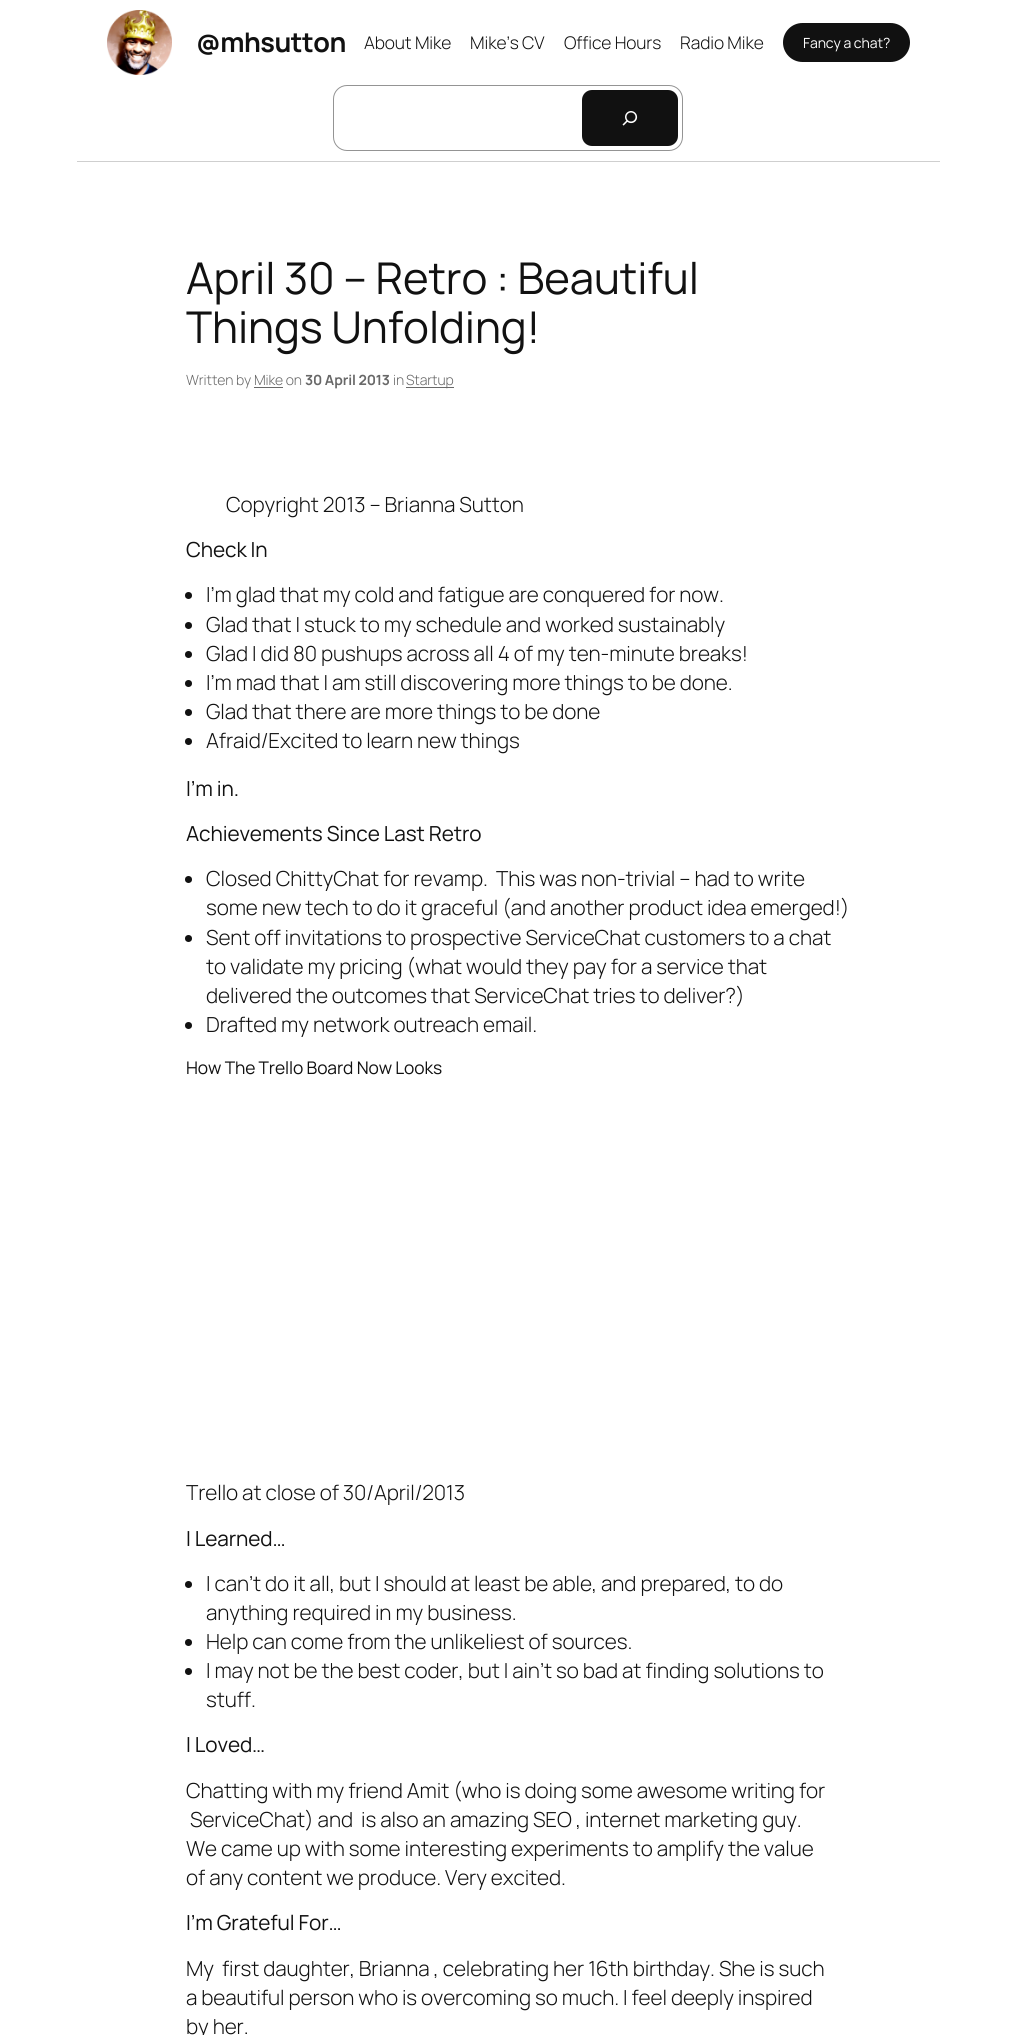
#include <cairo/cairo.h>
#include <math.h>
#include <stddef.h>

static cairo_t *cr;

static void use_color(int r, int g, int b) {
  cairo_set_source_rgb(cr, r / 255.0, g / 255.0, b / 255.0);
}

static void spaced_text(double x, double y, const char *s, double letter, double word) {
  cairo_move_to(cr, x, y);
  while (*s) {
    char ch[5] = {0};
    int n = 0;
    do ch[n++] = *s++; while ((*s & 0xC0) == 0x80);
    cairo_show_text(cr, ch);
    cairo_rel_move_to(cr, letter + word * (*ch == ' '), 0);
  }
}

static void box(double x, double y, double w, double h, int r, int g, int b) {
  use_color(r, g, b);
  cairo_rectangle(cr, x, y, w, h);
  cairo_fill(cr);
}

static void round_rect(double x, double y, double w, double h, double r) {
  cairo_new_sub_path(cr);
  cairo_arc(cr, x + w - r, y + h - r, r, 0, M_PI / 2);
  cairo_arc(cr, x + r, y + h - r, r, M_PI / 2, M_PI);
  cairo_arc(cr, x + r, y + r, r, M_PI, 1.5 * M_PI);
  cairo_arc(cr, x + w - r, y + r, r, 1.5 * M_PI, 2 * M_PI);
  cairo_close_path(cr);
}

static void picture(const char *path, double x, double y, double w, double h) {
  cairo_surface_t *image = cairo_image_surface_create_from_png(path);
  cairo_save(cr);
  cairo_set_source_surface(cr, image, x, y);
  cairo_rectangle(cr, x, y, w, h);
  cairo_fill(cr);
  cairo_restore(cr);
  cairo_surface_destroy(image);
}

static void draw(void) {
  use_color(255, 255, 255);
  cairo_paint(cr);
  picture("img_01.png", 107, 10, 65, 65);
  use_color(17, 17, 17);
  round_rect(783, 23, 127, 39, 19.5);
  cairo_fill(cr);
  round_rect(333.5, 85.5, 349, 65, 13.5);
  use_color(148, 148, 148);
  cairo_set_line_width(cr, 1);
  cairo_stroke(cr);
  use_color(17, 17, 17);
  round_rect(582, 90, 96, 56, 10);
  cairo_fill(cr);
  picture("img_02.png", 622, 111, 16, 15);
  box(77, 161, 863, 1, 207, 207, 207);
  box(406, 387, 48, 1, 104, 104, 104);
  box(254, 387, 29, 1, 104, 104, 104);
  use_color(17, 17, 17);
  cairo_arc(cr, 188.5, 595.5, 3.5, 0, 2 * M_PI);
  cairo_fill(cr);
  cairo_arc(cr, 188.5, 625.5, 3.5, 0, 2 * M_PI);
  cairo_fill(cr);
  cairo_arc(cr, 188.5, 654.5, 3.5, 0, 2 * M_PI);
  cairo_fill(cr);
  cairo_arc(cr, 188.5, 683.5, 3.5, 0, 2 * M_PI);
  cairo_fill(cr);
  cairo_arc(cr, 188.5, 712.5, 3.5, 0, 2 * M_PI);
  cairo_fill(cr);
  cairo_arc(cr, 188.5, 741.5, 3.5, 0, 2 * M_PI);
  cairo_fill(cr);
  cairo_arc(cr, 188.5, 879.5, 3.5, 0, 2 * M_PI);
  cairo_fill(cr);
  cairo_arc(cr, 188.5, 938.5, 3.5, 0, 2 * M_PI);
  cairo_fill(cr);
  cairo_arc(cr, 188.5, 1025.5, 3.5, 0, 2 * M_PI);
  cairo_fill(cr);
  cairo_arc(cr, 188.5, 1584.5, 3.5, 0, 2 * M_PI);
  cairo_fill(cr);
  cairo_arc(cr, 188.5, 1642.5, 3.5, 0, 2 * M_PI);
  cairo_fill(cr);
  cairo_arc(cr, 188.5, 1671.5, 3.5, 0, 2 * M_PI);
  cairo_fill(cr);
  cairo_select_font_face(cr, "Manrope", CAIRO_FONT_SLANT_NORMAL, CAIRO_FONT_WEIGHT_BOLD);
  cairo_set_font_size(cr, 27);
  spaced_text(196, 52, "@mhsutton", -0.5, 0);
  cairo_select_font_face(cr, "Manrope Light", CAIRO_FONT_SLANT_NORMAL, CAIRO_FONT_WEIGHT_NORMAL);
  cairo_set_font_size(cr, 17.4);
  spaced_text(364, 49, "About Mike", -0.1, 0);
  spaced_text(470, 49, "Mike’s CV", -0.1, 0);
  spaced_text(564, 49, "Office Hours", -0.1, 0);
  spaced_text(680, 49, "Radio Mike", -0.1, 0);
  cairo_select_font_face(cr, "Manrope", CAIRO_FONT_SLANT_NORMAL, CAIRO_FONT_WEIGHT_NORMAL);
  cairo_set_font_size(cr, 14);
  use_color(255, 255, 255);
  spaced_text(803, 48, "Fancy a chat?", -0.1, 0);
  cairo_set_font_size(cr, 43.75);
  use_color(17, 17, 17);
  spaced_text(186, 294, "April 30 – Retro : Beautiful", -0.1, 0);
  spaced_text(186, 343, "Things Unfolding!", -0.1, 0);
  cairo_select_font_face(cr, "Manrope Light", CAIRO_FONT_SLANT_NORMAL, CAIRO_FONT_WEIGHT_NORMAL);
  cairo_set_font_size(cr, 14);
  use_color(104, 104, 104);
  spaced_text(186, 385, "Written by Mike on", -0.1, 0);
  cairo_select_font_face(cr, "Manrope", CAIRO_FONT_SLANT_NORMAL, CAIRO_FONT_WEIGHT_BOLD);
  spaced_text(305, 385, "30 April 2013", -0.1, 0);
  cairo_select_font_face(cr, "Manrope Light", CAIRO_FONT_SLANT_NORMAL, CAIRO_FONT_WEIGHT_NORMAL);
  spaced_text(393, 385, "in", -0.1, 0);
  spaced_text(406, 385, "Startup", -0.1, 0);
  cairo_set_font_size(cr, 20.75);
  use_color(17, 17, 17);
  spaced_text(226, 512, "Copyright 2013 – Brianna Sutton", -0.1, 0);
  cairo_select_font_face(cr, "Manrope", CAIRO_FONT_SLANT_NORMAL, CAIRO_FONT_WEIGHT_NORMAL);
  spaced_text(186, 557, "Check In", -0.1, 0);
  cairo_select_font_face(cr, "Manrope Light", CAIRO_FONT_SLANT_NORMAL, CAIRO_FONT_WEIGHT_NORMAL);
  spaced_text(206, 602, "I’m glad that my cold and fatigue are conquered for now.", -0.1, 0);
  spaced_text(206, 632, "Glad that I stuck to my schedule and worked sustainably", -0.1, 0);
  spaced_text(206, 661, "Glad I did 80 pushups across all 4 of my ten-minute breaks!", -0.1, 0);
  spaced_text(206, 690, "I’m mad that I am still discovering more things to be done.", -0.1, 0);
  spaced_text(206, 719, "Glad that there are more things to be done", -0.1, 0);
  spaced_text(206, 748, "Afraid/Excited to learn new things", -0.1, 0);
  cairo_select_font_face(cr, "Manrope", CAIRO_FONT_SLANT_NORMAL, CAIRO_FONT_WEIGHT_NORMAL);
  spaced_text(186, 796, "I’m in.", -0.1, 0);
  spaced_text(186, 841, "Achievements Since Last Retro", -0.1, 0);
  cairo_select_font_face(cr, "Manrope Light", CAIRO_FONT_SLANT_NORMAL, CAIRO_FONT_WEIGHT_NORMAL);
  spaced_text(206, 886, "Closed ChittyChat for revamp.  This was non-trivial – had to write", -0.1, 0);
  spaced_text(206, 915, "some new tech to do it graceful (and another product idea emerged!)", -0.1, 0);
  spaced_text(206, 945, "Sent off invitations to prospective ServiceChat customers to a chat", -0.1, 0);
  spaced_text(206, 974, "to validate my pricing (what would they pay for a service that", -0.1, 0);
  spaced_text(206, 1003, "delivered the outcomes that ServiceChat tries to deliver?)", -0.1, 0);
  spaced_text(206, 1032, "Drafted my network outreach email.", -0.1, 0);
  cairo_select_font_face(cr, "Manrope", CAIRO_FONT_SLANT_NORMAL, CAIRO_FONT_WEIGHT_NORMAL);
  cairo_set_font_size(cr, 17.4);
  spaced_text(186, 1074, "How The Trello Board Now Looks", -0.1, 0);
  cairo_select_font_face(cr, "Manrope Light", CAIRO_FONT_SLANT_NORMAL, CAIRO_FONT_WEIGHT_NORMAL);
  cairo_set_font_size(cr, 20.75);
  spaced_text(186, 1500, "Trello at close of 30/April/2013", -0.1, 0);
  cairo_select_font_face(cr, "Manrope", CAIRO_FONT_SLANT_NORMAL, CAIRO_FONT_WEIGHT_NORMAL);
  spaced_text(186, 1546, "I Learned…", -0.1, 0);
  cairo_select_font_face(cr, "Manrope Light", CAIRO_FONT_SLANT_NORMAL, CAIRO_FONT_WEIGHT_NORMAL);
  spaced_text(206, 1591, "I can’t do it all, but I should at least be able, and prepared, to do", -0.1, 0);
  spaced_text(206, 1620, "anything required in my business.", -0.1, 0);
  spaced_text(206, 1649, "Help can come from the unlikeliest of sources.", -0.1, 0);
  spaced_text(206, 1678, "I may not be the best coder, but I ain’t so bad at finding solutions to", -0.1, 0);
  spaced_text(206, 1707, "stuff.", -0.1, 0);
  cairo_select_font_face(cr, "Manrope", CAIRO_FONT_SLANT_NORMAL, CAIRO_FONT_WEIGHT_NORMAL);
  spaced_text(186, 1752, "I Loved…", -0.1, 0);
  cairo_select_font_face(cr, "Manrope Light", CAIRO_FONT_SLANT_NORMAL, CAIRO_FONT_WEIGHT_NORMAL);
  spaced_text(186, 1798, "Chatting with my friend Amit (who is doing some awesome writing for", -0.1, 0);
  spaced_text(190, 1827, "ServiceChat) and  is also an amazing SEO , internet marketing guy.", -0.1, 0);
  spaced_text(186, 1856, "We came up with some interesting experiments to amplify the value", -0.1, 0);
  spaced_text(186, 1885, "of any content we produce. Very excited.", -0.1, 0);
  cairo_select_font_face(cr, "Manrope", CAIRO_FONT_SLANT_NORMAL, CAIRO_FONT_WEIGHT_NORMAL);
  spaced_text(186, 1930, "I’m Grateful For…", -0.1, 0);
  cairo_select_font_face(cr, "Manrope Light", CAIRO_FONT_SLANT_NORMAL, CAIRO_FONT_WEIGHT_NORMAL);
  spaced_text(186, 1976, "My  first daughter, Brianna , celebrating her 16th birthday. She is such", -0.1, 0);
  spaced_text(186, 2005, "a beautiful person who is overcoming so much. I feel deeply inspired", -0.1, 0);
  spaced_text(186, 2034, "by her.", -0.1, 0);
}

int main(void) {
  cairo_surface_t *surface = cairo_image_surface_create(CAIRO_FORMAT_RGB24, 1017, 2035);
  cr = cairo_create(surface);
  cairo_font_options_t *options = cairo_font_options_create();
  cairo_font_options_set_hint_metrics(options, CAIRO_HINT_METRICS_OFF);
  cairo_font_options_set_hint_style(options, CAIRO_HINT_STYLE_NONE);
  cairo_set_font_options(cr, options);
  cairo_set_miter_limit(cr, 4);
  draw();
  cairo_surface_write_to_png(surface, "out.png");
  cairo_font_options_destroy(options);
  cairo_destroy(cr);
  cairo_surface_destroy(surface);
  return 0;
}
